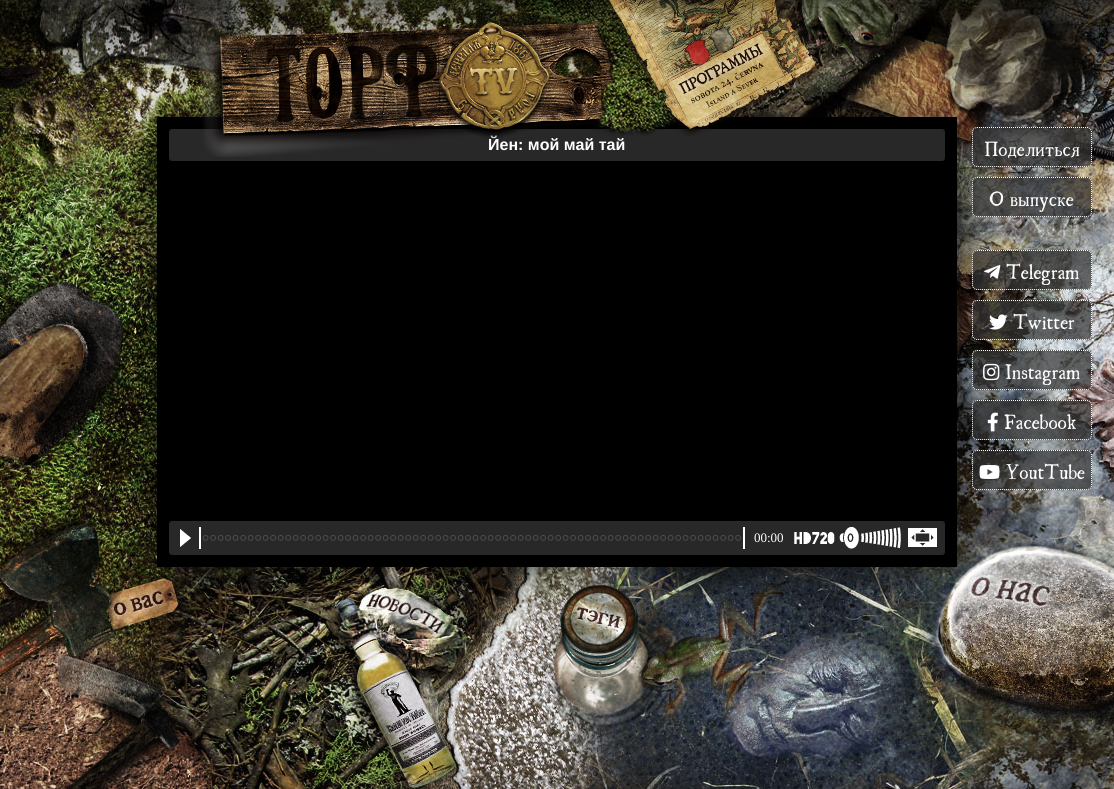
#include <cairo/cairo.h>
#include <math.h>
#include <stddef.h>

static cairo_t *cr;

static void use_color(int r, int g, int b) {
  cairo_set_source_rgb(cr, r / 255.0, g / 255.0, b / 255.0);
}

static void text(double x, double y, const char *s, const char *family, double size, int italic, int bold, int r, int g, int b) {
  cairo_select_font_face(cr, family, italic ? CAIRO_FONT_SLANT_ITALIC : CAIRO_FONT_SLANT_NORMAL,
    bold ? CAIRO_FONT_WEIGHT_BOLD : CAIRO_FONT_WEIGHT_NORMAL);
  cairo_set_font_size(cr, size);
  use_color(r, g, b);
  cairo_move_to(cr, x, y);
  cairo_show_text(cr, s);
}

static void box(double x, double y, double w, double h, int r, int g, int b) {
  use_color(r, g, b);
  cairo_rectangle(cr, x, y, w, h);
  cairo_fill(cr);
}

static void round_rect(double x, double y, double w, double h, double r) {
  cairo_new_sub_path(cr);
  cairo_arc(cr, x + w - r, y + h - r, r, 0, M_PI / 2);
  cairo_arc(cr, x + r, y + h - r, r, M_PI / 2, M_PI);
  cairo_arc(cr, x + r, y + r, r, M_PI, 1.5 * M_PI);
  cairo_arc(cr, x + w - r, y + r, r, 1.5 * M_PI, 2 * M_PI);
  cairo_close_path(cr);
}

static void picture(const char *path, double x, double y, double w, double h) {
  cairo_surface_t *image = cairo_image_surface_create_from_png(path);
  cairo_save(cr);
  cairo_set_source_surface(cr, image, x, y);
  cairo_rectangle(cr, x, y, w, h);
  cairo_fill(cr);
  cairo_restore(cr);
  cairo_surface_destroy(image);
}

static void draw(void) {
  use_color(255, 255, 255);
  cairo_paint(cr);
  picture("img_01.png", 0, 0, 1114, 789);
  box(157, 117, 800, 450, 0, 0, 0);
  use_color(40, 40, 40);
  round_rect(169, 129, 776, 32, 3);
  cairo_fill(cr);
  round_rect(169, 521, 776, 34, 3);
  cairo_fill(cr);
  picture("img_04.png", 180, 529, 11, 18);
  picture("img_05.png", 202, 535, 541, 6);
  box(743, 527, 2, 22, 255, 255, 255);
  box(199, 527, 2, 22, 255, 255, 255);
  picture("img_06.png", 794, 532, 41, 12);
  picture("img_07.png", 839, 527, 62, 22);
  picture("img_08.png", 908, 528, 29, 19);
  cairo_set_source_rgba(cr, 0.196, 0.196, 0.196, 0.7);
  round_rect(972, 127, 120, 40, 5);
  cairo_fill(cr);
  cairo_new_path(cr);
  cairo_move_to(cr, 977, 127.5);
  cairo_line_to(cr, 1087, 127.5);
  cairo_curve_to(cr, 1089.5, 127.5, 1091.5, 129.5, 1091.5, 132);
  cairo_line_to(cr, 1091.5, 162);
  cairo_curve_to(cr, 1091.5, 164.5, 1089.5, 166.5, 1087, 166.5);
  cairo_line_to(cr, 977, 166.5);
  cairo_curve_to(cr, 974.5, 166.5, 972.5, 164.5, 972.5, 162);
  cairo_line_to(cr, 972.5, 132);
  cairo_curve_to(cr, 972.5, 129.5, 974.5, 127.5, 977, 127.5);
  cairo_close_path(cr);
  use_color(255, 255, 255);
  cairo_set_line_width(cr, 1);
  cairo_set_dash(cr, (double[]){1, 1}, 2, 0);
  cairo_stroke(cr);
  cairo_set_source_rgba(cr, 0.196, 0.196, 0.196, 0.7);
  round_rect(972, 177, 120, 40, 5);
  cairo_fill(cr);
  cairo_new_path(cr);
  cairo_move_to(cr, 977, 177.5);
  cairo_line_to(cr, 1087, 177.5);
  cairo_curve_to(cr, 1089.5, 177.5, 1091.5, 179.5, 1091.5, 182);
  cairo_line_to(cr, 1091.5, 212);
  cairo_curve_to(cr, 1091.5, 214.5, 1089.5, 216.5, 1087, 216.5);
  cairo_line_to(cr, 977, 216.5);
  cairo_curve_to(cr, 974.5, 216.5, 972.5, 214.5, 972.5, 212);
  cairo_line_to(cr, 972.5, 182);
  cairo_curve_to(cr, 972.5, 179.5, 974.5, 177.5, 977, 177.5);
  cairo_close_path(cr);
  use_color(255, 255, 255);
  cairo_stroke(cr);
  cairo_set_source_rgba(cr, 0.196, 0.196, 0.196, 0.7);
  round_rect(972, 250, 120, 40, 5);
  cairo_fill(cr);
  cairo_new_path(cr);
  cairo_move_to(cr, 977, 250.5);
  cairo_line_to(cr, 1087, 250.5);
  cairo_curve_to(cr, 1089.5, 250.5, 1091.5, 252.5, 1091.5, 255);
  cairo_line_to(cr, 1091.5, 285);
  cairo_curve_to(cr, 1091.5, 287.5, 1089.5, 289.5, 1087, 289.5);
  cairo_line_to(cr, 977, 289.5);
  cairo_curve_to(cr, 974.5, 289.5, 972.5, 287.5, 972.5, 285);
  cairo_line_to(cr, 972.5, 255);
  cairo_curve_to(cr, 972.5, 252.5, 974.5, 250.5, 977, 250.5);
  cairo_close_path(cr);
  use_color(255, 255, 255);
  cairo_stroke(cr);
  picture("img_09.png", 984, 265, 17, 14);
  cairo_set_source_rgba(cr, 0.196, 0.196, 0.196, 0.7);
  round_rect(972, 300, 120, 40, 5);
  cairo_fill(cr);
  cairo_new_path(cr);
  cairo_move_to(cr, 977, 300.5);
  cairo_line_to(cr, 1087, 300.5);
  cairo_curve_to(cr, 1089.5, 300.5, 1091.5, 302.5, 1091.5, 305);
  cairo_line_to(cr, 1091.5, 335);
  cairo_curve_to(cr, 1091.5, 337.5, 1089.5, 339.5, 1087, 339.5);
  cairo_line_to(cr, 977, 339.5);
  cairo_curve_to(cr, 974.5, 339.5, 972.5, 337.5, 972.5, 335);
  cairo_line_to(cr, 972.5, 305);
  cairo_curve_to(cr, 972.5, 302.5, 974.5, 300.5, 977, 300.5);
  cairo_close_path(cr);
  use_color(255, 255, 255);
  cairo_stroke(cr);
  picture("img_10.png", 989, 314, 19, 16);
  cairo_set_source_rgba(cr, 0.196, 0.196, 0.196, 0.7);
  round_rect(972, 350, 120, 40, 5);
  cairo_fill(cr);
  cairo_new_path(cr);
  cairo_move_to(cr, 977, 350.5);
  cairo_line_to(cr, 1087, 350.5);
  cairo_curve_to(cr, 1089.5, 350.5, 1091.5, 352.5, 1091.5, 355);
  cairo_line_to(cr, 1091.5, 385);
  cairo_curve_to(cr, 1091.5, 387.5, 1089.5, 389.5, 1087, 389.5);
  cairo_line_to(cr, 977, 389.5);
  cairo_curve_to(cr, 974.5, 389.5, 972.5, 387.5, 972.5, 385);
  cairo_line_to(cr, 972.5, 355);
  cairo_curve_to(cr, 972.5, 352.5, 974.5, 350.5, 977, 350.5);
  cairo_close_path(cr);
  use_color(255, 255, 255);
  cairo_stroke(cr);
  picture("img_11.png", 983, 363, 17, 18);
  cairo_set_source_rgba(cr, 0.196, 0.196, 0.196, 0.7);
  round_rect(972, 400, 120, 40, 5);
  cairo_fill(cr);
  cairo_new_path(cr);
  cairo_move_to(cr, 977, 400.5);
  cairo_line_to(cr, 1087, 400.5);
  cairo_curve_to(cr, 1089.5, 400.5, 1091.5, 402.5, 1091.5, 405);
  cairo_line_to(cr, 1091.5, 435);
  cairo_curve_to(cr, 1091.5, 437.5, 1089.5, 439.5, 1087, 439.5);
  cairo_line_to(cr, 977, 439.5);
  cairo_curve_to(cr, 974.5, 439.5, 972.5, 437.5, 972.5, 435);
  cairo_line_to(cr, 972.5, 405);
  cairo_curve_to(cr, 972.5, 402.5, 974.5, 400.5, 977, 400.5);
  cairo_close_path(cr);
  use_color(255, 255, 255);
  cairo_stroke(cr);
  picture("img_12.png", 987, 412, 11, 20);
  cairo_set_source_rgba(cr, 0.196, 0.196, 0.196, 0.7);
  round_rect(972, 450, 120, 40, 5);
  cairo_fill(cr);
  cairo_new_path(cr);
  cairo_move_to(cr, 977, 450.5);
  cairo_line_to(cr, 1087, 450.5);
  cairo_curve_to(cr, 1089.5, 450.5, 1091.5, 452.5, 1091.5, 455);
  cairo_line_to(cr, 1091.5, 485);
  cairo_curve_to(cr, 1091.5, 487.5, 1089.5, 489.5, 1087, 489.5);
  cairo_line_to(cr, 977, 489.5);
  cairo_curve_to(cr, 974.5, 489.5, 972.5, 487.5, 972.5, 485);
  cairo_line_to(cr, 972.5, 455);
  cairo_curve_to(cr, 972.5, 452.5, 974.5, 450.5, 977, 450.5);
  cairo_close_path(cr);
  use_color(255, 255, 255);
  cairo_stroke(cr);
  picture("img_13.png", 979, 465, 21, 14);
  text(488, 150, "Йен: мой май тай", "Liberation Sans", 16, 0, 1, 255, 255, 255);
  picture("img_02.png", 197, 0, 483, 157);
  picture("img_03.png", 605, 0, 212, 136);
  text(754, 542, "00:00", "Liberation Serif", 13, 0, 0, 255, 255, 255);
  text(984, 156, "Поделиться", "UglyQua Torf", 18.5, 0, 0, 255, 255, 255);
  text(989, 206, "О выпуске", "UglyQua Torf", 18.5, 0, 0, 255, 255, 255);
  text(1006, 279, "Telegram", "UglyQua Torf", 18.5, 0, 0, 255, 255, 255);
  text(1013, 329, "Twitter", "UglyQua Torf", 18.5, 0, 0, 255, 255, 255);
  text(1005, 379, "Instagram", "UglyQua Torf", 18.5, 0, 0, 255, 255, 255);
  text(1004, 429, "Facebook", "UglyQua Torf", 18.5, 0, 0, 255, 255, 255);
  text(1006, 479, "YoutTube", "UglyQua Torf", 18.5, 0, 0, 255, 255, 255);
}

int main(void) {
  cairo_surface_t *surface = cairo_image_surface_create(CAIRO_FORMAT_RGB24, 1114, 789);
  cr = cairo_create(surface);
  cairo_font_options_t *options = cairo_font_options_create();
  cairo_font_options_set_hint_metrics(options, CAIRO_HINT_METRICS_OFF);
  cairo_font_options_set_hint_style(options, CAIRO_HINT_STYLE_NONE);
  cairo_set_font_options(cr, options);
  cairo_set_miter_limit(cr, 4);
  draw();
  cairo_surface_write_to_png(surface, "out.png");
  cairo_font_options_destroy(options);
  cairo_destroy(cr);
  cairo_surface_destroy(surface);
  return 0;
}
